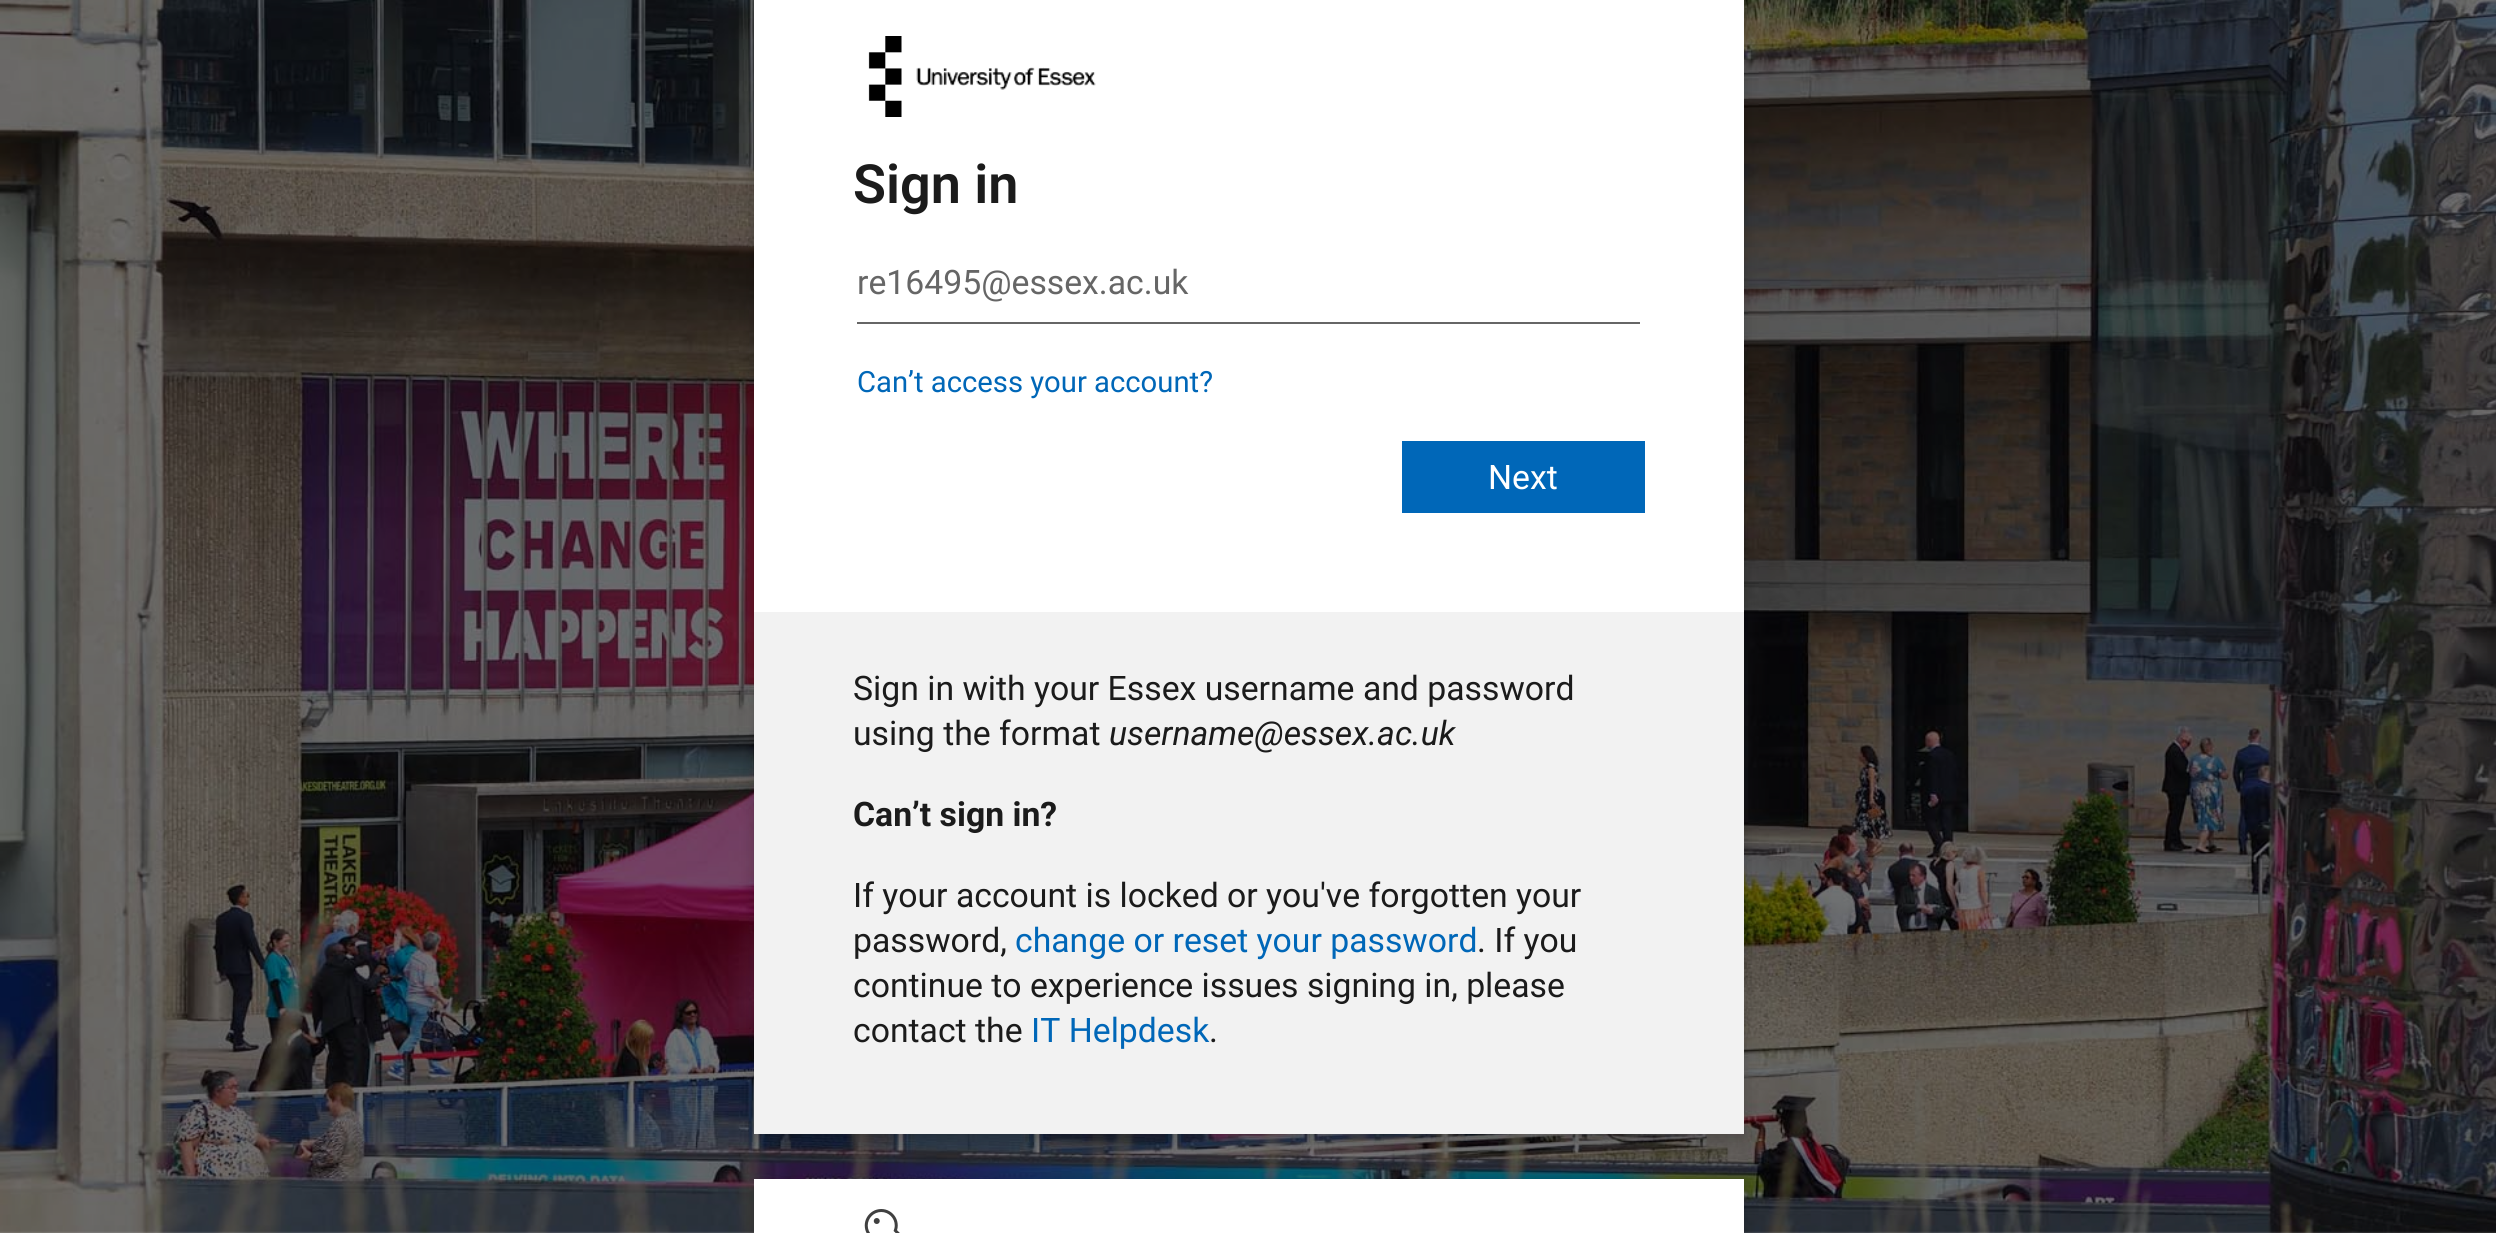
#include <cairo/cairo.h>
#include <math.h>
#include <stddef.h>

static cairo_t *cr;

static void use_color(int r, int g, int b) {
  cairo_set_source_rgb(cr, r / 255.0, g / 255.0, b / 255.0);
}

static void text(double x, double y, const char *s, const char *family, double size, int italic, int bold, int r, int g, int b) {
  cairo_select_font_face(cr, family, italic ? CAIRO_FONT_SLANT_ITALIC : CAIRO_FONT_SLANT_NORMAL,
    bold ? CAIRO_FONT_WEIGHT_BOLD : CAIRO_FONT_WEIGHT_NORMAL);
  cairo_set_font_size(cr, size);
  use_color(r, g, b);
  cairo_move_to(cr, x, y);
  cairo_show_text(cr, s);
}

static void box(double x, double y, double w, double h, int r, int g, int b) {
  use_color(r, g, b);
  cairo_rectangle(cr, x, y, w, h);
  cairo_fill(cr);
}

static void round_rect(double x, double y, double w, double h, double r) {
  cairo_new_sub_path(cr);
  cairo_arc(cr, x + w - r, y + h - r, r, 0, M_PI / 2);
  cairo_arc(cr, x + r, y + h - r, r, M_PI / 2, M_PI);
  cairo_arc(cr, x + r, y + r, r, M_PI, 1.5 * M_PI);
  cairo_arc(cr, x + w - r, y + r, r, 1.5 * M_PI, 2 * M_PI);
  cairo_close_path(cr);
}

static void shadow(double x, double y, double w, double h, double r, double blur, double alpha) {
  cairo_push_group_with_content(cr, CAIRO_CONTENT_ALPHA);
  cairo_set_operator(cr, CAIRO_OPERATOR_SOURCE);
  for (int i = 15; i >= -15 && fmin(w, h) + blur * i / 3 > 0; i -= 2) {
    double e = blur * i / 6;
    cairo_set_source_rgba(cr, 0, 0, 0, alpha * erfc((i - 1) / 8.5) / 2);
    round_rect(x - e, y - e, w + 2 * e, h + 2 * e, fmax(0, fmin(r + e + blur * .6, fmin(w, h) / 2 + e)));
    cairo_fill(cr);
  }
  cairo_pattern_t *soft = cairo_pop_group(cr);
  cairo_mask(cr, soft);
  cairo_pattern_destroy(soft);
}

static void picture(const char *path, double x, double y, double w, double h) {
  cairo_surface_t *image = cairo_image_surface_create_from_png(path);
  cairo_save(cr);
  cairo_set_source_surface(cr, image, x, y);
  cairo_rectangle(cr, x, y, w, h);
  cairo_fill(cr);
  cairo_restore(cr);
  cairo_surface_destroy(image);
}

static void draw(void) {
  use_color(255, 255, 255);
  cairo_paint(cr);
  picture("img_01.png", 0, 0, 2496, 1233);
  use_color(0, 0, 0);
  shadow(754, -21, 990, 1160, 0, 7, 0.2);
  box(754, 0, 990, 612, 255, 255, 255);
  picture("img_02.png", 868, 36, 228, 81);
  box(857, 322, 783, 2, 102, 102, 102);
  box(1402, 441, 243, 72, 0, 103, 184);
  box(754, 612, 990, 522, 242, 242, 242);
  use_color(0, 0, 0);
  shadow(754, 1184, 990, 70, 0, 7, 0.2);
  box(754, 1179, 990, 54, 255, 255, 255);
  picture("img_03.png", 864, 1209, 36, 24);
  text(853, 203, "Sign in", "Roboto SemiBold", 54, 0, 0, 27, 27, 27);
  text(857, 294, "re16495@essex.ac.uk", "Roboto", 33.75, 0, 0, 102, 102, 102);
  text(857, 392, "Can’t access your account?", "Roboto", 29.25, 0, 0, 0, 103, 184);
  text(1488, 489, "Next", "Roboto", 33.75, 0, 0, 255, 255, 255);
  text(853, 700, "Sign in with your Essex username and password", "Roboto", 33.75, 0, 0, 27, 27, 27);
  text(853, 745, "using the format", "Roboto", 33.75, 0, 0, 27, 27, 27);
  text(1109, 745, "username@essex.ac.uk", "Roboto", 33.75, 1, 0, 27, 27, 27);
  text(853, 826, "Can’t sign in?", "Roboto", 33.75, 0, 1, 27, 27, 27);
  text(853, 907, "If your account is locked or you've forgotten your", "Roboto", 33.75, 0, 0, 27, 27, 27);
  text(853, 952, "password,", "Roboto", 33.75, 0, 0, 27, 27, 27);
  text(1015, 952, "change or reset your password", "Roboto", 33.75, 0, 0, 0, 103, 184);
  text(1477, 952, ". If you", "Roboto", 33.75, 0, 0, 27, 27, 27);
  text(853, 997, "continue to experience issues signing in, please", "Roboto", 33.75, 0, 0, 27, 27, 27);
  text(853, 1042, "contact the", "Roboto", 33.75, 0, 0, 27, 27, 27);
  text(1031, 1042, "IT Helpdesk", "Roboto", 33.75, 0, 0, 0, 103, 184);
  text(1209, 1042, ".", "Roboto", 33.75, 0, 0, 27, 27, 27);
}

int main(void) {
  cairo_surface_t *surface = cairo_image_surface_create(CAIRO_FORMAT_RGB24, 2496, 1233);
  cr = cairo_create(surface);
  cairo_font_options_t *options = cairo_font_options_create();
  cairo_font_options_set_hint_metrics(options, CAIRO_HINT_METRICS_OFF);
  cairo_font_options_set_hint_style(options, CAIRO_HINT_STYLE_NONE);
  cairo_set_font_options(cr, options);
  cairo_set_miter_limit(cr, 4);
  draw();
  cairo_surface_write_to_png(surface, "out.png");
  cairo_font_options_destroy(options);
  cairo_destroy(cr);
  cairo_surface_destroy(surface);
  return 0;
}
